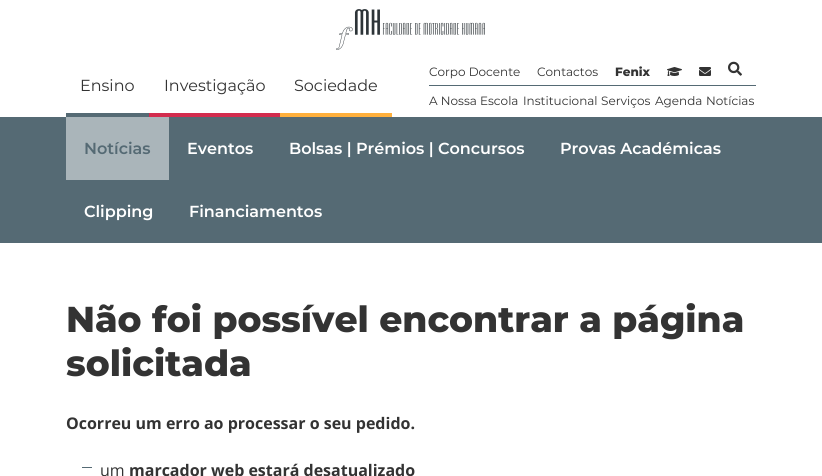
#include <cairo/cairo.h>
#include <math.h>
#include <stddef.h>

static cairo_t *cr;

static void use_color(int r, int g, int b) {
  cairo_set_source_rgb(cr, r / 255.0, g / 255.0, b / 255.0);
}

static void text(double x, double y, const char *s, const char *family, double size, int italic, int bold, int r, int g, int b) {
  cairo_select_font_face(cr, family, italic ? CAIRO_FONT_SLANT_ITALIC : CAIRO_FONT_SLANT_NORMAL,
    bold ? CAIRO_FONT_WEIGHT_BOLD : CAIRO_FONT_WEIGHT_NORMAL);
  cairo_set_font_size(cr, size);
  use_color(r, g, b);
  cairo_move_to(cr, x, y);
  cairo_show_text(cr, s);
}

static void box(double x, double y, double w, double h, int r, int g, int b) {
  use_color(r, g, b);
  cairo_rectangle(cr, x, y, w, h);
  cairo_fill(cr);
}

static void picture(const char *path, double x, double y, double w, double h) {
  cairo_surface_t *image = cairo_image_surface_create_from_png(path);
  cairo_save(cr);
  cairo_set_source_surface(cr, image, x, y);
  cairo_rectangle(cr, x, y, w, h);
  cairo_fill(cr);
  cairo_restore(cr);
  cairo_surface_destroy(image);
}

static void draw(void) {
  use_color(255, 255, 255);
  cairo_paint(cr);
  picture("img_01.png", 336, 9, 149, 41);
  box(66, 113, 83, 4, 85, 106, 116);
  box(149, 113, 131, 4, 211, 44, 78);
  box(280, 113, 112, 4, 255, 176, 60);
  picture("img_02.png", 667, 67, 15, 9);
  picture("img_03.png", 699, 67, 12, 9);
  picture("img_04.png", 728, 61, 14, 15);
  box(429, 85, 327, 1, 85, 106, 116);
  box(0, 117, 822, 126, 85, 106, 116);
  box(66, 117, 103, 63, 170, 181, 186);
  box(82, 467, 10, 1, 85, 106, 116);
  text(80, 91, "Ensino", "Montserrat", 16, 0, 0, 51, 51, 51);
  text(164, 91, "Investigação", "Montserrat", 16, 0, 0, 51, 51, 51);
  text(294, 91, "Sociedade", "Montserrat", 16, 0, 0, 51, 51, 51);
  text(429, 76, "Corpo Docente", "Montserrat", 12, 0, 0, 51, 51, 51);
  text(537, 76, "Contactos", "Montserrat", 12, 0, 0, 51, 51, 51);
  text(615, 76, "Fenix", "Montserrat ExtraBold", 12, 0, 0, 51, 51, 51);
  text(429, 105, "A Nossa Escola", "Montserrat", 12, 0, 0, 51, 51, 51);
  text(523, 105, "Institucional", "Montserrat", 12, 0, 0, 51, 51, 51);
  text(601, 105, "Serviços", "Montserrat", 12, 0, 0, 51, 51, 51);
  text(655, 105, "Agenda", "Montserrat", 12, 0, 0, 51, 51, 51);
  text(706, 105, "Notícias", "Montserrat", 12, 0, 0, 51, 51, 51);
  text(84, 154, "Notícias", "Montserrat SemiBold", 16, 0, 0, 85, 106, 116);
  text(187, 154, "Eventos", "Montserrat SemiBold", 16, 0, 0, 255, 255, 255);
  text(289, 154, "Bolsas | Prémios | Concursos", "Montserrat SemiBold", 16, 0, 0, 255, 255, 255);
  text(560, 154, "Provas Académicas", "Montserrat SemiBold", 16, 0, 0, 255, 255, 255);
  text(84, 217, "Clipping", "Montserrat SemiBold", 16, 0, 0, 255, 255, 255);
  text(189, 217, "Financiamentos", "Montserrat SemiBold", 16, 0, 0, 255, 255, 255);
  text(66, 332, "Não foi possível encontrar a página", "Montserrat ExtraBold", 36, 0, 0, 51, 51, 51);
  text(66, 376, "solicitada", "Montserrat ExtraBold", 36, 0, 0, 51, 51, 51);
  text(66, 429, "Ocorreu um erro ao processar o seu pedido.", "Open Sans", 16, 0, 1, 51, 51, 51);
  text(100, 476, "um", "Open Sans", 16, 0, 0, 51, 51, 51);
  text(129, 476, "marcador web estará desatualizado", "Open Sans", 16, 0, 1, 51, 51, 51);
}

int main(void) {
  cairo_surface_t *surface = cairo_image_surface_create(CAIRO_FORMAT_RGB24, 822, 476);
  cr = cairo_create(surface);
  cairo_font_options_t *options = cairo_font_options_create();
  cairo_font_options_set_hint_metrics(options, CAIRO_HINT_METRICS_OFF);
  cairo_font_options_set_hint_style(options, CAIRO_HINT_STYLE_NONE);
  cairo_set_font_options(cr, options);
  cairo_set_miter_limit(cr, 4);
  draw();
  cairo_surface_write_to_png(surface, "out.png");
  cairo_font_options_destroy(options);
  cairo_destroy(cr);
  cairo_surface_destroy(surface);
  return 0;
}
